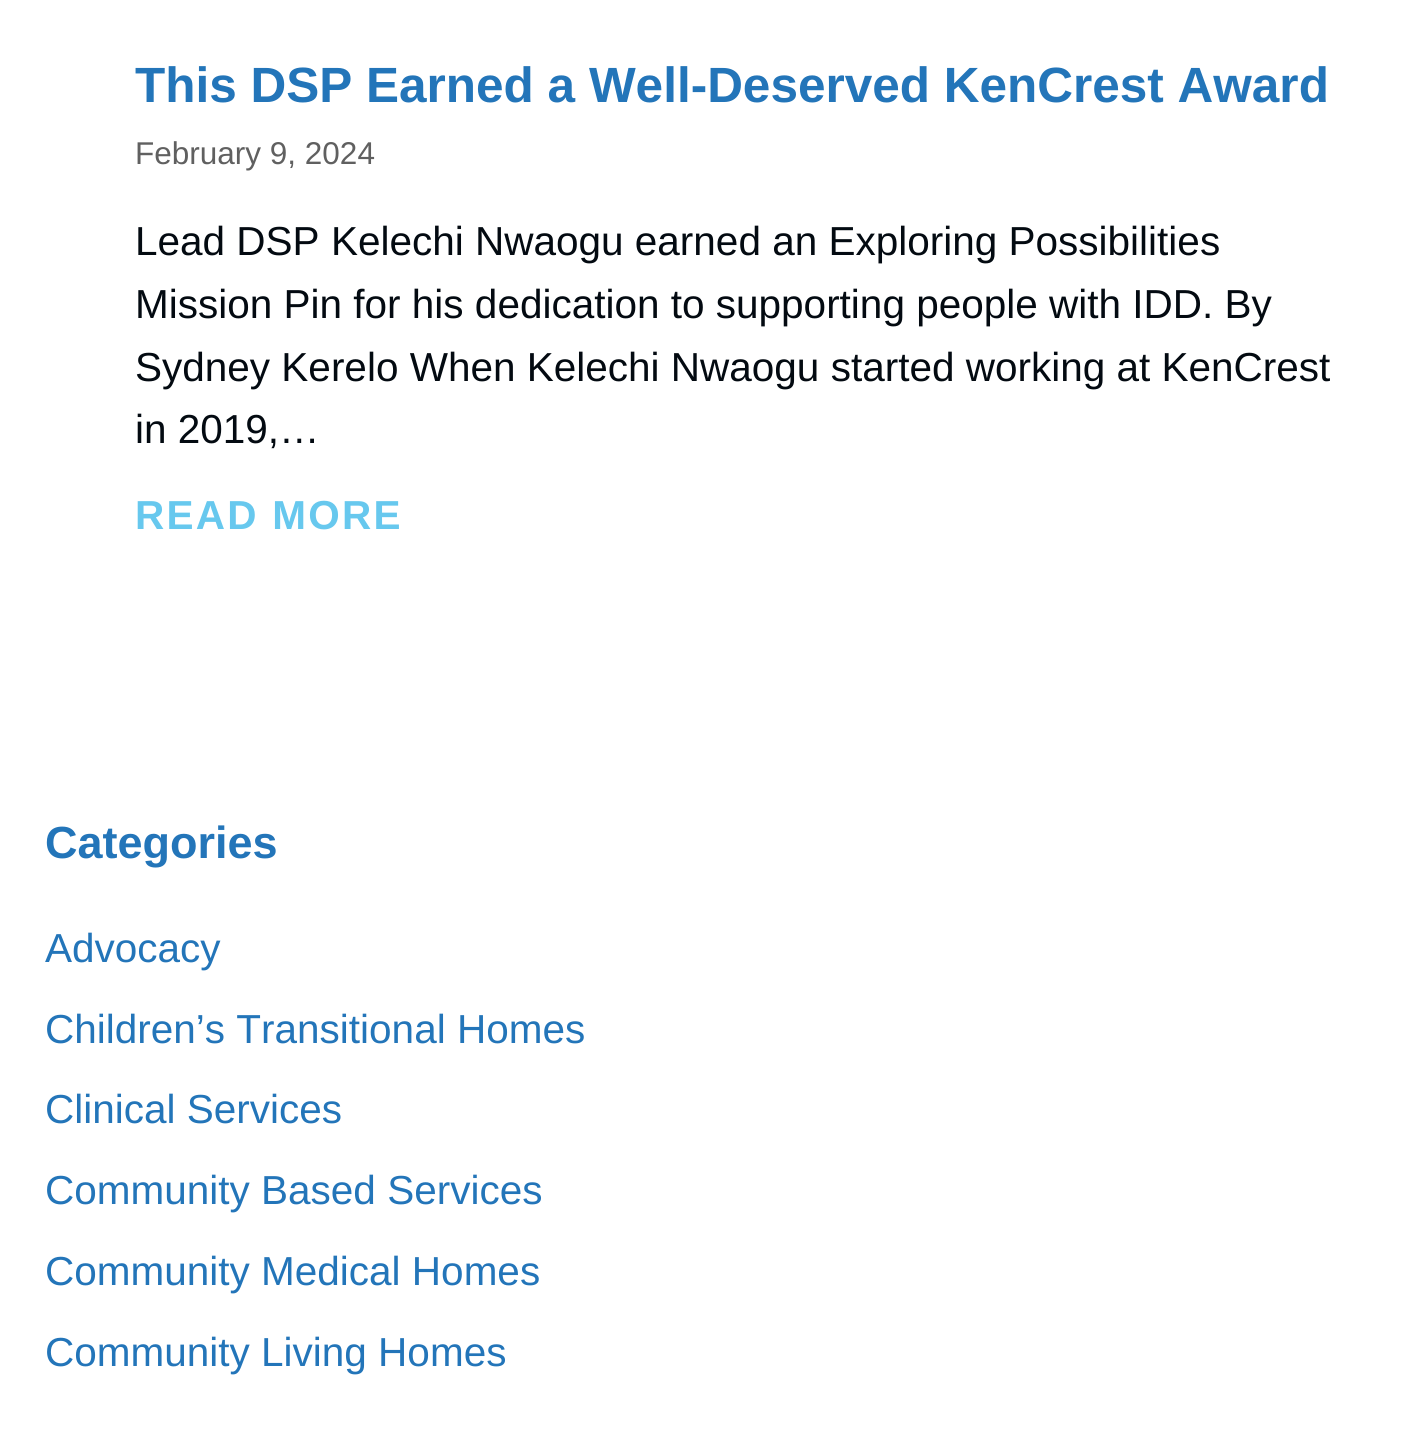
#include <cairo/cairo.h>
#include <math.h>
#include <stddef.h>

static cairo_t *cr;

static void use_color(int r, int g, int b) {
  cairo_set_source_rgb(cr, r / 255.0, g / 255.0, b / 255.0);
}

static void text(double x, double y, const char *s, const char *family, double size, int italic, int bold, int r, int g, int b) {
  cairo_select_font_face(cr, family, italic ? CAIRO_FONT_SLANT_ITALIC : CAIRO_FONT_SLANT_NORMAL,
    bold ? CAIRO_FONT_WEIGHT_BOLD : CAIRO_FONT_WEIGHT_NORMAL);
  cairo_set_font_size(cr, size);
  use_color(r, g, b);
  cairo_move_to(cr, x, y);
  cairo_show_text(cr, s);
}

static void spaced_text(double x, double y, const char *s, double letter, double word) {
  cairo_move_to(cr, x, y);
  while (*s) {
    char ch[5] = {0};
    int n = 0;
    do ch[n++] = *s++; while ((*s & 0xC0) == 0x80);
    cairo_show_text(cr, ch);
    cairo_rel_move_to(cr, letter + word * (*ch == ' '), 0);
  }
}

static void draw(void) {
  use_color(255, 255, 255);
  cairo_paint(cr);
  text(135, 102, "This DSP Earned a Well-Deserved KenCrest Award", "Liberation Sans", 49.5, 0, 1, 35, 117, 185);
  text(135, 164, "February 9, 2024", "Liberation Sans", 31.5, 0, 0, 96, 96, 96);
  text(135, 255, "Lead DSP Kelechi Nwaogu earned an Exploring Possibilities", "Liberation Sans", 40.5, 0, 0, 3, 10, 17);
  text(135, 318, "Mission Pin for his dedication to supporting people with IDD. By", "Liberation Sans", 40.5, 0, 0, 3, 10, 17);
  text(135, 381, "Sydney Kerelo When Kelechi Nwaogu started working at KenCrest", "Liberation Sans", 40.5, 0, 0, 3, 10, 17);
  text(135, 443, "in 2019,…", "Liberation Sans", 40.5, 0, 0, 3, 10, 17);
  cairo_select_font_face(cr, "Liberation Sans", CAIRO_FONT_SLANT_NORMAL, CAIRO_FONT_WEIGHT_BOLD);
  use_color(103, 200, 238);
  spaced_text(135, 529, "READ MORE", 2.25, 0);
  text(45, 858, "Categories", "Liberation Sans", 45, 0, 1, 35, 117, 185);
  text(45, 962, "Advocacy", "Liberation Sans", 40.5, 0, 0, 35, 117, 185);
  text(45, 1043, "Children’s Transitional Homes", "Liberation Sans", 40.5, 0, 0, 35, 117, 185);
  text(45, 1123, "Clinical Services", "Liberation Sans", 40.5, 0, 0, 35, 117, 185);
  text(45, 1204, "Community Based Services", "Liberation Sans", 40.5, 0, 0, 35, 117, 185);
  text(45, 1285, "Community Medical Homes", "Liberation Sans", 40.5, 0, 0, 35, 117, 185);
  text(45, 1366, "Community Living Homes", "Liberation Sans", 40.5, 0, 0, 35, 117, 185);
}

int main(void) {
  cairo_surface_t *surface = cairo_image_surface_create(CAIRO_FORMAT_RGB24, 1403, 1439);
  cr = cairo_create(surface);
  cairo_font_options_t *options = cairo_font_options_create();
  cairo_font_options_set_hint_metrics(options, CAIRO_HINT_METRICS_OFF);
  cairo_font_options_set_hint_style(options, CAIRO_HINT_STYLE_NONE);
  cairo_set_font_options(cr, options);
  cairo_set_miter_limit(cr, 4);
  draw();
  cairo_surface_write_to_png(surface, "out.png");
  cairo_font_options_destroy(options);
  cairo_destroy(cr);
  cairo_surface_destroy(surface);
  return 0;
}
